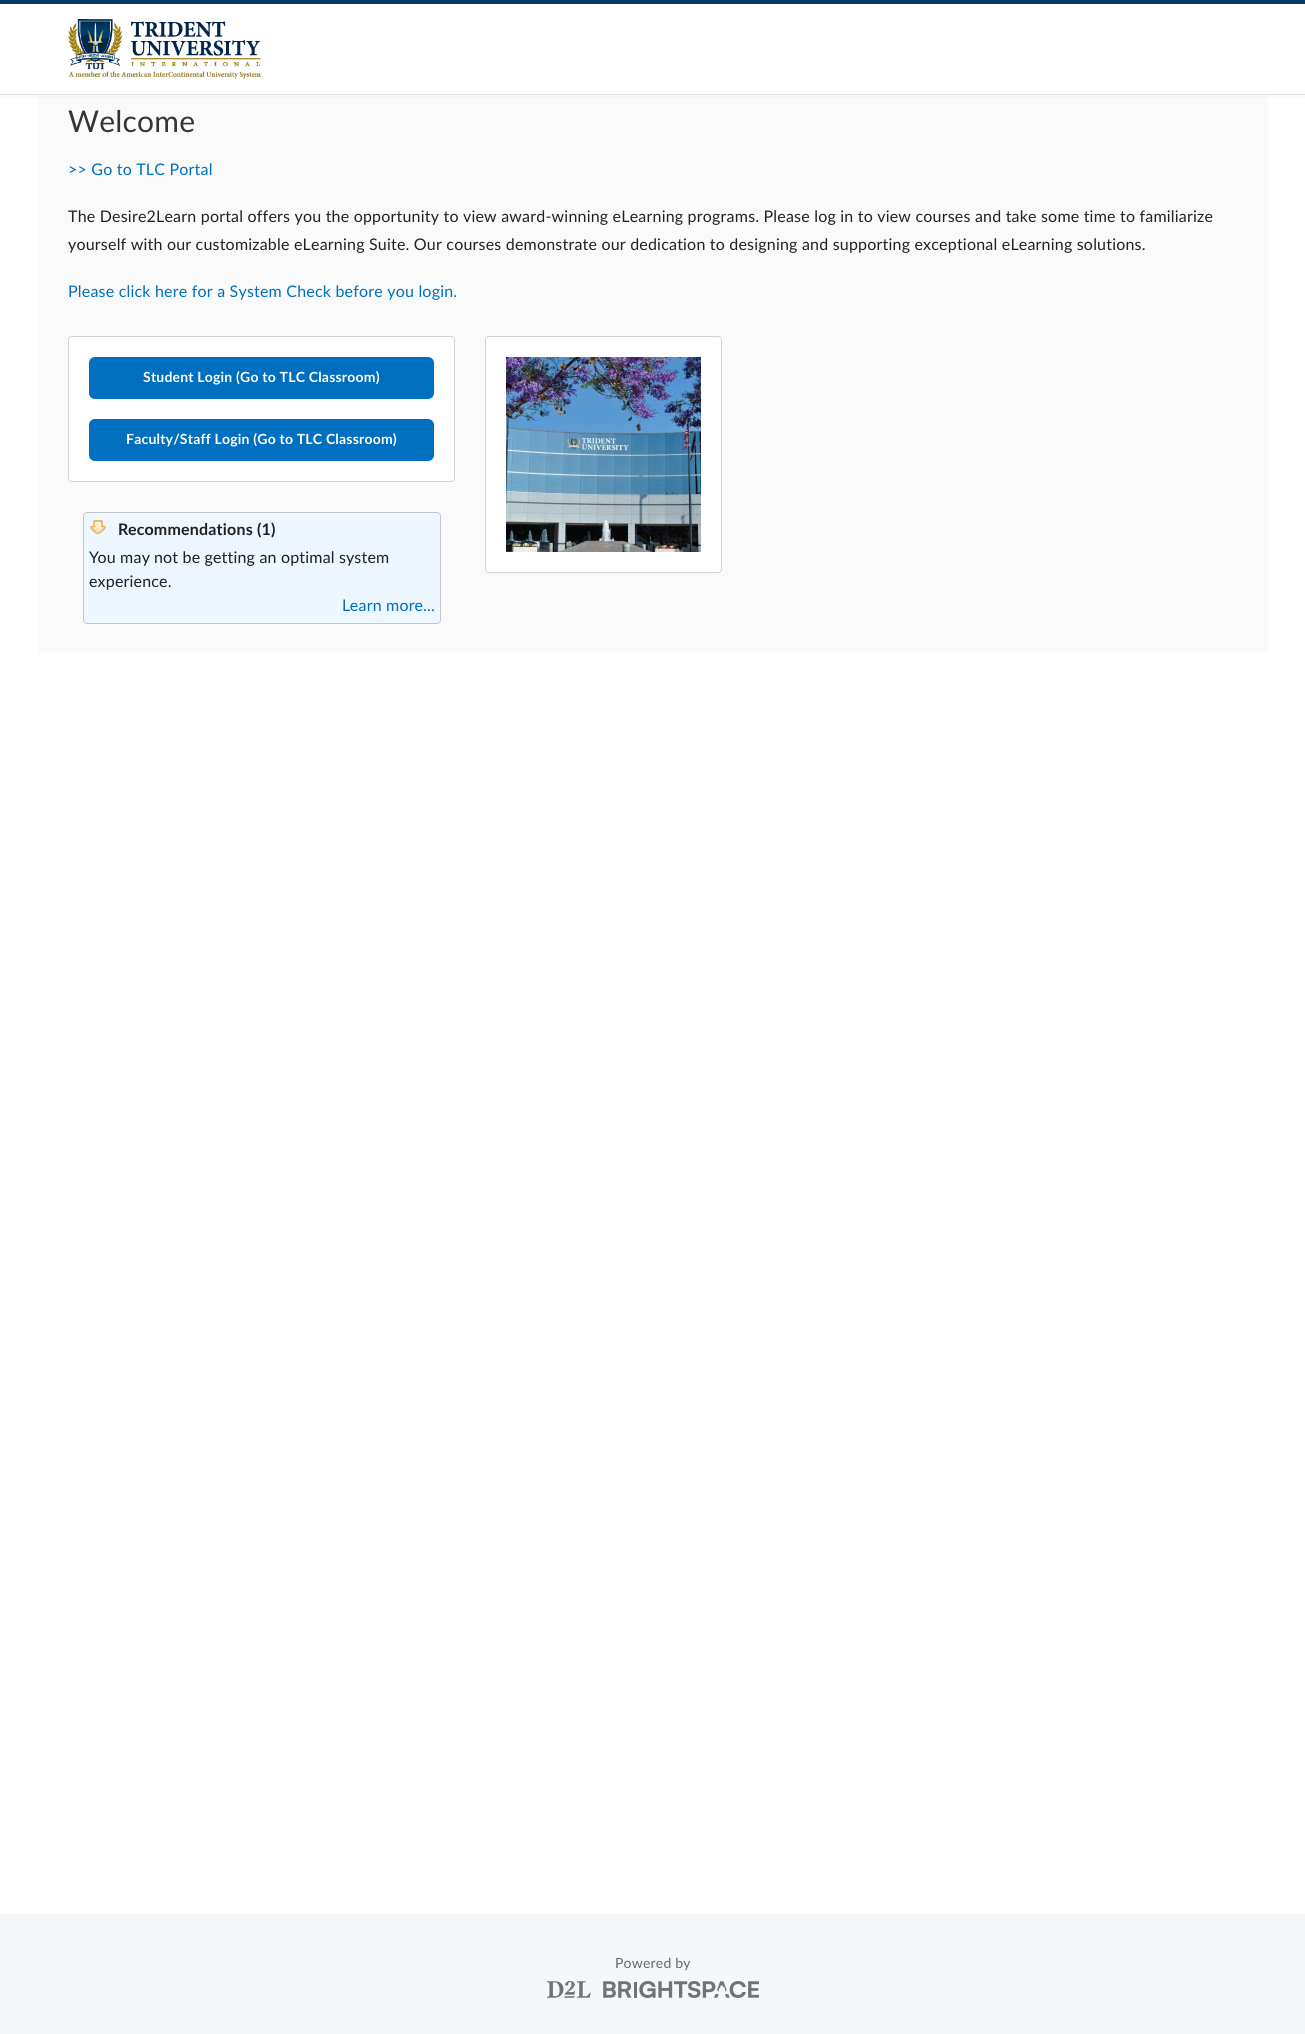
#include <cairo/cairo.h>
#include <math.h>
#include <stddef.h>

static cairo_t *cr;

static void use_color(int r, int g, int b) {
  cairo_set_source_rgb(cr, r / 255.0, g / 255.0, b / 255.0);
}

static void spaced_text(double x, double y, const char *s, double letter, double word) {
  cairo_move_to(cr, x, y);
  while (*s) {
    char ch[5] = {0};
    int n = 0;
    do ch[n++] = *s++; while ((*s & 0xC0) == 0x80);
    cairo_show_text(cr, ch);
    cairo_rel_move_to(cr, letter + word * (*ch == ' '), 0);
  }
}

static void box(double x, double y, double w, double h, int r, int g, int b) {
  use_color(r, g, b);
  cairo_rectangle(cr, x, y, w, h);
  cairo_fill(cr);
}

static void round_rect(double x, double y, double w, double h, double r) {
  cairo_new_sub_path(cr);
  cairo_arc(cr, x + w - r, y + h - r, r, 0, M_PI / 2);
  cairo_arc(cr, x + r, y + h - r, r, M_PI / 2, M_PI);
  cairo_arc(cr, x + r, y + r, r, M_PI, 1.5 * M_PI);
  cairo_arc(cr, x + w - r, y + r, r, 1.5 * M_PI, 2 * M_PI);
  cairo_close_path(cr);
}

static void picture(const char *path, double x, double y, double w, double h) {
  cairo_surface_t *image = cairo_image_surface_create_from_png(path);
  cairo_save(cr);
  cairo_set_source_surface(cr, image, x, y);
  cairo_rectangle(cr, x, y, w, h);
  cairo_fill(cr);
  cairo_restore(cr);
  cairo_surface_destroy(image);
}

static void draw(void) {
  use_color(255, 255, 255);
  cairo_paint(cr);
  box(0, 95, 1305, 3, 250, 250, 250);
  box(0, 94, 1305, 1, 224, 225, 226);
  box(0, 0, 1305, 4, 0, 58, 99);
  picture("img_01.png", 68, 19, 193, 60);
  box(38, 98, 1230, 555, 250, 250, 250);
  box(38, 95, 1230, 3, 245, 245, 245);
  use_color(255, 255, 255);
  round_rect(68.5, 336.5, 386, 145, 3.5);
  cairo_fill_preserve(cr);
  use_color(205, 213, 220);
  cairo_set_line_width(cr, 1);
  cairo_stroke(cr);
  use_color(0, 111, 191);
  round_rect(89, 357, 345, 42, 6);
  cairo_fill(cr);
  round_rect(89, 419, 345, 42, 6);
  cairo_fill(cr);
  picture("img_02.png", 83, 512, 358, 112);
  use_color(255, 255, 255);
  round_rect(485.5, 336.5, 236, 236, 3.5);
  cairo_fill_preserve(cr);
  use_color(205, 213, 220);
  cairo_stroke(cr);
  picture("img_03.png", 506, 357, 195, 195);
  box(0, 1914, 1305, 120, 246, 247, 248);
  picture("img_04.png", 547, 1981, 212, 17);
  cairo_select_font_face(cr, "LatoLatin", CAIRO_FONT_SLANT_NORMAL, CAIRO_FONT_WEIGHT_NORMAL);
  cairo_set_font_size(cr, 30);
  use_color(53, 53, 53);
  spaced_text(68, 132, "Welcome", 0.2, 0);
  cairo_set_font_size(cr, 16);
  use_color(0, 111, 191);
  spaced_text(68, 175, ">> Go to TLC Portal", 0.2, 0);
  use_color(32, 33, 34);
  spaced_text(68, 222, "The Desire2Learn portal offers you the opportunity to view award-winning eLearning programs. Please log in to view courses and take some time to familiarize", 0.2, 0);
  spaced_text(68, 250, "yourself with our customizable eLearning Suite. Our courses demonstrate our dedication to designing and supporting exceptional eLearning solutions.", 0.2, 0);
  use_color(0, 111, 191);
  spaced_text(68, 297, "Please click here for a System Check before you login.", 0.2, 0);
  cairo_select_font_face(cr, "LatoLatin", CAIRO_FONT_SLANT_NORMAL, CAIRO_FONT_WEIGHT_BOLD);
  cairo_set_font_size(cr, 14);
  use_color(255, 255, 255);
  spaced_text(143, 382, "Student Login (Go to TLC Classroom)", 0.2, 0);
  spaced_text(126, 444, "Faculty/Staff Login (Go to TLC Classroom)", 0.2, 0);
  cairo_select_font_face(cr, "LatoLatin", CAIRO_FONT_SLANT_NORMAL, CAIRO_FONT_WEIGHT_NORMAL);
  use_color(99, 104, 107);
  spaced_text(615, 1968, "Powered by", 0.2, 0);
}

int main(void) {
  cairo_surface_t *surface = cairo_image_surface_create(CAIRO_FORMAT_RGB24, 1305, 2034);
  cr = cairo_create(surface);
  cairo_font_options_t *options = cairo_font_options_create();
  cairo_font_options_set_hint_metrics(options, CAIRO_HINT_METRICS_OFF);
  cairo_font_options_set_hint_style(options, CAIRO_HINT_STYLE_NONE);
  cairo_set_font_options(cr, options);
  cairo_set_miter_limit(cr, 4);
  draw();
  cairo_surface_write_to_png(surface, "out.png");
  cairo_font_options_destroy(options);
  cairo_destroy(cr);
  cairo_surface_destroy(surface);
  return 0;
}
